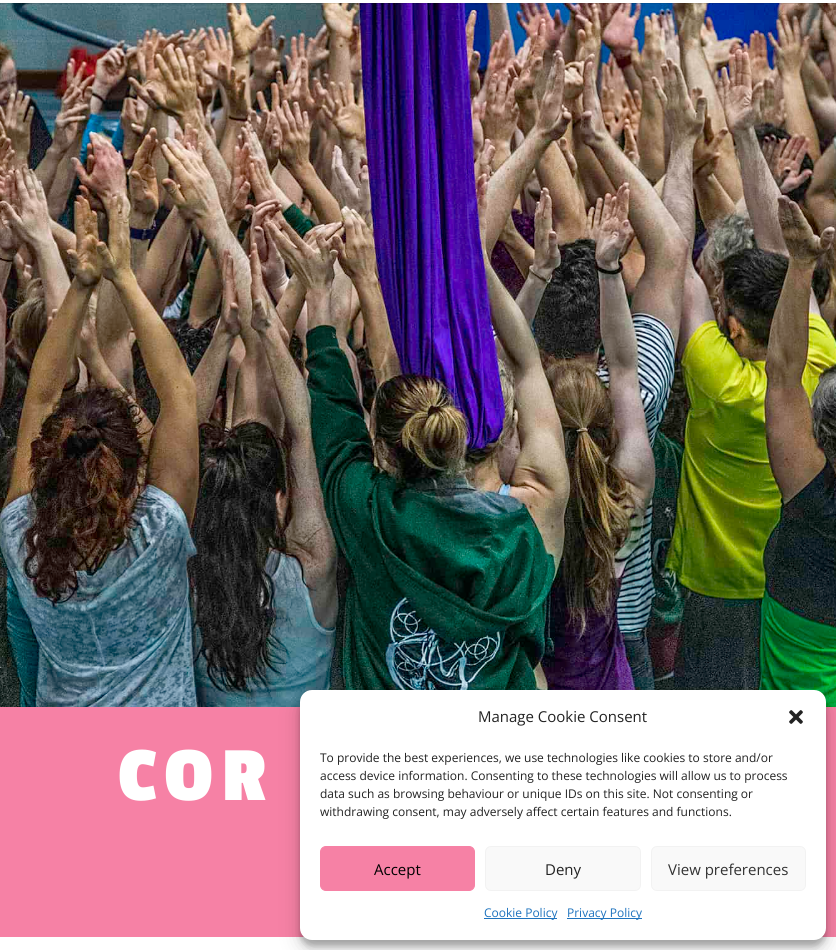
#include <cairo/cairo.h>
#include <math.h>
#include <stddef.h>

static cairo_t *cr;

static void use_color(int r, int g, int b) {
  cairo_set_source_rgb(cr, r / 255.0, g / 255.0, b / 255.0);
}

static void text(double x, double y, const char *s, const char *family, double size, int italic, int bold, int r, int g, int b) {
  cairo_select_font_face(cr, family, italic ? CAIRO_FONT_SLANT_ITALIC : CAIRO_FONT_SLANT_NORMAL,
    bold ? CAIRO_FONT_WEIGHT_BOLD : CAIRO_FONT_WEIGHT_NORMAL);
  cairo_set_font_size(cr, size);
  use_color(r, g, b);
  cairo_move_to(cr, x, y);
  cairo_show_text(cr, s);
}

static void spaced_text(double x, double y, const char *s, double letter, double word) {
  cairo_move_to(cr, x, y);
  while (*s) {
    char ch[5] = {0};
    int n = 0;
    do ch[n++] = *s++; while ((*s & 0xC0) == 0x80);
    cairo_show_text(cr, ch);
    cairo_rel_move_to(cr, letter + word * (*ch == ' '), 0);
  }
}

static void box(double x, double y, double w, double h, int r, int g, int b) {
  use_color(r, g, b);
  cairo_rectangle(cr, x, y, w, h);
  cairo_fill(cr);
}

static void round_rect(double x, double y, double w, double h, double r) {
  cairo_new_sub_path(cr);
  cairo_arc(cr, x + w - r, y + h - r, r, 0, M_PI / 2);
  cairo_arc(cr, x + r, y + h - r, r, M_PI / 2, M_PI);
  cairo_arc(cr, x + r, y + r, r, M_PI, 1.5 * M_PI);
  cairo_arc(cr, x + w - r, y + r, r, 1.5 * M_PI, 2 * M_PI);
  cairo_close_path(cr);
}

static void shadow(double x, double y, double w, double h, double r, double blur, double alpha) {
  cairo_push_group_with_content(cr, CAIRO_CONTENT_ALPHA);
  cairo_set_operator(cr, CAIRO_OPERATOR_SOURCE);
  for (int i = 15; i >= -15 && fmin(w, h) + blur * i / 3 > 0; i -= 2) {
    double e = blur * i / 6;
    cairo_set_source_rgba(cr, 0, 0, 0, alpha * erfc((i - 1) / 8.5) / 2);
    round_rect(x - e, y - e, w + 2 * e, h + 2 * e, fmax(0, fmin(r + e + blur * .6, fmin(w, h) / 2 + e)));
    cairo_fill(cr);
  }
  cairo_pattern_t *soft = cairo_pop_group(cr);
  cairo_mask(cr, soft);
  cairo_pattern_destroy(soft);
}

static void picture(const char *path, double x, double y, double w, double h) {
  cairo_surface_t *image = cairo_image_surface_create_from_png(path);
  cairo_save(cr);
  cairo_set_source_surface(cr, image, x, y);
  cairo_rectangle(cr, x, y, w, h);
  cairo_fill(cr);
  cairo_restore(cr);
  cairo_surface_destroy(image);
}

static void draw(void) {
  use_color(255, 255, 255);
  cairo_paint(cr);
  picture("img_01.png", 0, 3, 836, 704);
  cairo_set_source_rgba(cr, 0, 0, 0, 0.1);
  cairo_rectangle(cr, 0, 3, 836, 1);
  cairo_fill(cr);
  box(0, 707, 836, 230, 246, 129, 165);
  use_color(0, 0, 0);
  shadow(300, 696, 526, 250, 12, 3, 0.23);
  shadow(300, 700, 526, 250, 12, 10, 0.19);
  use_color(255, 255, 255);
  round_rect(300, 690, 526, 250, 12);
  cairo_fill(cr);
  picture("img_02.png", 789, 710, 14, 14);
  use_color(246, 129, 165);
  round_rect(320.5, 846.5, 154, 44, 5.5);
  cairo_fill_preserve(cr);
  cairo_set_line_width(cr, 1);
  cairo_stroke(cr);
  use_color(249, 249, 249);
  round_rect(485.5, 846.5, 155, 44, 5.5);
  cairo_fill_preserve(cr);
  use_color(242, 242, 242);
  cairo_stroke(cr);
  use_color(249, 249, 249);
  round_rect(651.5, 846.5, 154, 44, 5.5);
  cairo_fill_preserve(cr);
  use_color(242, 242, 242);
  cairo_stroke(cr);
  box(484, 918, 73, 1, 30, 115, 190);
  box(567, 918, 75, 1, 30, 115, 190);
  cairo_select_font_face(cr, "Passion One", CAIRO_FONT_SLANT_NORMAL, CAIRO_FONT_WEIGHT_BOLD);
  cairo_set_font_size(cr, 80);
  use_color(255, 255, 255);
  spaced_text(118, 800, "COR", 9, 0);
  text(478, 722, "Manage Cookie Consent", "Open Sans", 15, 0, 0, 34, 34, 34);
  text(320, 762, "To provide the best experiences, we use technologies like cookies to store and/or", "Open Sans", 12, 0, 0, 34, 34, 34);
  text(320, 780, "access device information. Consenting to these technologies will allow us to process", "Open Sans", 12, 0, 0, 34, 34, 34);
  text(320, 798, "data such as browsing behaviour or unique IDs on this site. Not consenting or", "Open Sans", 12, 0, 0, 34, 34, 34);
  text(320, 816, "withdrawing consent, may adversely affect certain features and functions.", "Open Sans", 12, 0, 0, 34, 34, 34);
  text(374, 875, "Accept", "Open Sans", 15, 0, 0, 0, 0, 0);
  text(545, 875, "Deny", "Open Sans", 15, 0, 0, 34, 34, 34);
  text(668, 875, "View preferences", "Open Sans", 15, 0, 0, 51, 51, 51);
  text(484, 917, "Cookie Policy", "Open Sans", 12, 0, 0, 30, 115, 190);
  text(567, 917, "Privacy Policy", "Open Sans", 12, 0, 0, 30, 115, 190);
}

int main(void) {
  cairo_surface_t *surface = cairo_image_surface_create(CAIRO_FORMAT_RGB24, 836, 950);
  cr = cairo_create(surface);
  cairo_font_options_t *options = cairo_font_options_create();
  cairo_font_options_set_hint_metrics(options, CAIRO_HINT_METRICS_OFF);
  cairo_font_options_set_hint_style(options, CAIRO_HINT_STYLE_NONE);
  cairo_set_font_options(cr, options);
  cairo_set_miter_limit(cr, 4);
  draw();
  cairo_surface_write_to_png(surface, "out.png");
  cairo_font_options_destroy(options);
  cairo_destroy(cr);
  cairo_surface_destroy(surface);
  return 0;
}
